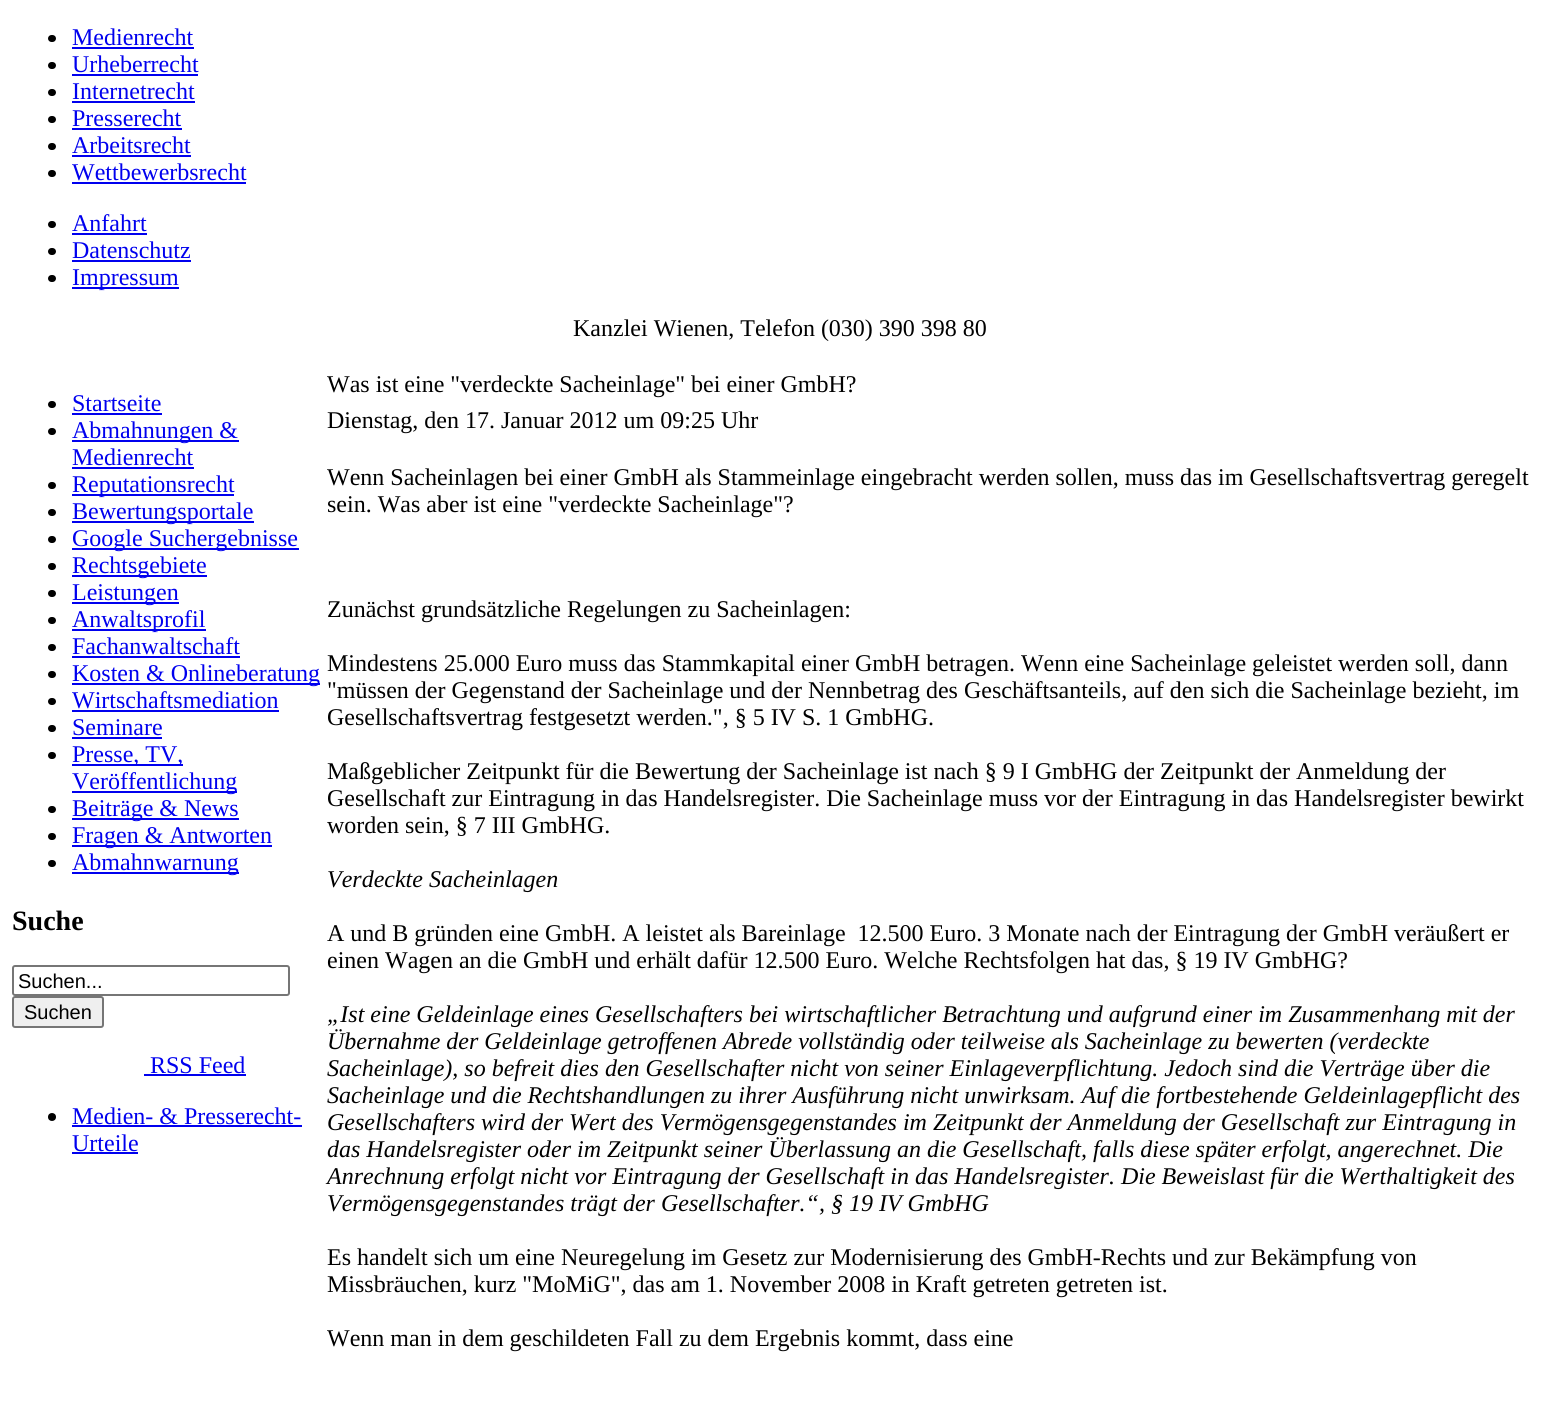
#include <cairo/cairo.h>
#include <math.h>
#include <stddef.h>

static cairo_t *cr;

static void use_color(int r, int g, int b) {
  cairo_set_source_rgb(cr, r / 255.0, g / 255.0, b / 255.0);
}

static void text(double x, double y, const char *s, const char *family, double size, int italic, int bold, int r, int g, int b) {
  cairo_select_font_face(cr, family, italic ? CAIRO_FONT_SLANT_ITALIC : CAIRO_FONT_SLANT_NORMAL,
    bold ? CAIRO_FONT_WEIGHT_BOLD : CAIRO_FONT_WEIGHT_NORMAL);
  cairo_set_font_size(cr, size);
  use_color(r, g, b);
  cairo_move_to(cr, x, y);
  cairo_show_text(cr, s);
}

static void box(double x, double y, double w, double h, int r, int g, int b) {
  use_color(r, g, b);
  cairo_rectangle(cr, x, y, w, h);
  cairo_fill(cr);
}

static void round_rect(double x, double y, double w, double h, double r) {
  cairo_new_sub_path(cr);
  cairo_arc(cr, x + w - r, y + h - r, r, 0, M_PI / 2);
  cairo_arc(cr, x + r, y + h - r, r, M_PI / 2, M_PI);
  cairo_arc(cr, x + r, y + r, r, M_PI, 1.5 * M_PI);
  cairo_arc(cr, x + w - r, y + r, r, 1.5 * M_PI, 2 * M_PI);
  cairo_close_path(cr);
}

static void draw(void) {
  use_color(255, 255, 255);
  cairo_paint(cr);
  use_color(0, 0, 0);
  round_rect(48, 35, 8, 7, 3.5);
  cairo_fill(cr);
  box(72, 47, 122, 2, 0, 0, 238);
  use_color(0, 0, 0);
  round_rect(48, 62, 8, 7, 3.5);
  cairo_fill(cr);
  box(72, 74, 126, 2, 0, 0, 238);
  use_color(0, 0, 0);
  round_rect(48, 89, 8, 7, 3.5);
  cairo_fill(cr);
  box(72, 101, 123, 2, 0, 0, 238);
  use_color(0, 0, 0);
  round_rect(48, 116, 8, 7, 3.5);
  cairo_fill(cr);
  box(72, 128, 110, 2, 0, 0, 238);
  use_color(0, 0, 0);
  round_rect(48, 143, 8, 7, 3.5);
  cairo_fill(cr);
  box(72, 155, 119, 2, 0, 0, 238);
  use_color(0, 0, 0);
  round_rect(48, 170, 8, 7, 3.5);
  cairo_fill(cr);
  box(72, 182, 174, 2, 0, 0, 238);
  use_color(0, 0, 0);
  round_rect(48, 221, 8, 7, 3.5);
  cairo_fill(cr);
  box(72, 233, 75, 2, 0, 0, 238);
  use_color(0, 0, 0);
  round_rect(48, 248, 8, 7, 3.5);
  cairo_fill(cr);
  box(72, 260, 119, 2, 0, 0, 238);
  use_color(0, 0, 0);
  round_rect(48, 275, 8, 7, 3.5);
  cairo_fill(cr);
  box(72, 287, 107, 2, 0, 0, 238);
  use_color(0, 0, 0);
  round_rect(48, 401, 8, 7, 3.5);
  cairo_fill(cr);
  box(72, 413, 90, 2, 0, 0, 238);
  use_color(0, 0, 0);
  round_rect(48, 428, 8, 7, 3.5);
  cairo_fill(cr);
  box(72, 440, 167, 2, 0, 0, 238);
  box(72, 467, 122, 2, 0, 0, 238);
  use_color(0, 0, 0);
  round_rect(48, 482, 8, 7, 3.5);
  cairo_fill(cr);
  box(72, 494, 162, 2, 0, 0, 238);
  use_color(0, 0, 0);
  round_rect(48, 509, 8, 7, 3.5);
  cairo_fill(cr);
  box(72, 521, 182, 2, 0, 0, 238);
  use_color(0, 0, 0);
  round_rect(48, 536, 8, 7, 3.5);
  cairo_fill(cr);
  box(72, 548, 227, 2, 0, 0, 238);
  use_color(0, 0, 0);
  round_rect(48, 563, 8, 7, 3.5);
  cairo_fill(cr);
  box(72, 575, 135, 2, 0, 0, 238);
  use_color(0, 0, 0);
  round_rect(48, 590, 8, 7, 3.5);
  cairo_fill(cr);
  box(72, 602, 107, 2, 0, 0, 238);
  use_color(0, 0, 0);
  round_rect(48, 617, 8, 7, 3.5);
  cairo_fill(cr);
  box(72, 629, 134, 2, 0, 0, 238);
  use_color(0, 0, 0);
  round_rect(48, 644, 8, 7, 3.5);
  cairo_fill(cr);
  box(72, 656, 168, 2, 0, 0, 238);
  use_color(0, 0, 0);
  round_rect(48, 671, 8, 7, 3.5);
  cairo_fill(cr);
  box(72, 683, 248, 2, 0, 0, 238);
  use_color(0, 0, 0);
  round_rect(48, 698, 8, 7, 3.5);
  cairo_fill(cr);
  box(72, 710, 207, 2, 0, 0, 238);
  use_color(0, 0, 0);
  round_rect(48, 725, 8, 7, 3.5);
  cairo_fill(cr);
  box(72, 737, 90, 2, 0, 0, 238);
  use_color(0, 0, 0);
  round_rect(48, 752, 8, 7, 3.5);
  cairo_fill(cr);
  box(72, 764, 111, 2, 0, 0, 238);
  box(72, 791, 165, 2, 0, 0, 238);
  use_color(0, 0, 0);
  round_rect(48, 806, 8, 7, 3.5);
  cairo_fill(cr);
  box(72, 818, 167, 2, 0, 0, 238);
  use_color(0, 0, 0);
  round_rect(48, 833, 8, 7, 3.5);
  cairo_fill(cr);
  box(72, 845, 200, 2, 0, 0, 238);
  use_color(0, 0, 0);
  round_rect(48, 860, 8, 7, 3.5);
  cairo_fill(cr);
  box(72, 872, 167, 2, 0, 0, 238);
  round_rect(13, 966, 276, 29, 2);
  use_color(118, 118, 118);
  cairo_stroke(cr);
  use_color(239, 239, 239);
  round_rect(13, 997, 90, 30, 2);
  cairo_fill_preserve(cr);
  use_color(118, 118, 118);
  cairo_stroke(cr);
  box(144, 1074, 102, 2, 0, 0, 238);
  use_color(0, 0, 0);
  cairo_arc(cr, 52, 1117, 4, 0, 2 * M_PI);
  cairo_fill(cr);
  box(72, 1125, 230, 2, 0, 0, 238);
  box(72, 1152, 66, 2, 0, 0, 238);
  text(72, 45, "Medienrecht", "Liberation Serif", 24, 0, 0, 0, 0, 238);
  text(72, 72, "Urheberrecht", "Liberation Serif", 24, 0, 0, 0, 0, 238);
  text(72, 99, "Internetrecht", "Liberation Serif", 24, 0, 0, 0, 0, 238);
  text(72, 126, "Presserecht", "Liberation Serif", 24, 0, 0, 0, 0, 238);
  text(72, 153, "Arbeitsrecht", "Liberation Serif", 24, 0, 0, 0, 0, 238);
  text(72, 180, "Wettbewerbsrecht", "Liberation Serif", 24, 0, 0, 0, 0, 238);
  text(72, 231, "Anfahrt", "Liberation Serif", 24, 0, 0, 0, 0, 238);
  text(72, 258, "Datenschutz", "Liberation Serif", 24, 0, 0, 0, 0, 238);
  text(72, 285, "Impressum", "Liberation Serif", 24, 0, 0, 0, 0, 238);
  text(573, 336, "Kanzlei Wienen, Telefon (030) 390 398 80", "Liberation Serif", 24, 0, 0, 0, 0, 0);
  text(72, 411, "Startseite", "Liberation Serif", 24, 0, 0, 0, 0, 238);
  text(72, 438, "Abmahnungen &", "Liberation Serif", 24, 0, 0, 0, 0, 238);
  text(72, 465, "Medienrecht", "Liberation Serif", 24, 0, 0, 0, 0, 238);
  text(72, 492, "Reputationsrecht", "Liberation Serif", 24, 0, 0, 0, 0, 238);
  text(72, 519, "Bewertungsportale", "Liberation Serif", 24, 0, 0, 0, 0, 238);
  text(72, 546, "Google Suchergebnisse", "Liberation Serif", 24, 0, 0, 0, 0, 238);
  text(72, 573, "Rechtsgebiete", "Liberation Serif", 24, 0, 0, 0, 0, 238);
  text(72, 600, "Leistungen", "Liberation Serif", 24, 0, 0, 0, 0, 238);
  text(72, 627, "Anwaltsprofil", "Liberation Serif", 24, 0, 0, 0, 0, 238);
  text(72, 654, "Fachanwaltschaft", "Liberation Serif", 24, 0, 0, 0, 0, 238);
  text(72, 681, "Kosten & Onlineberatung", "Liberation Serif", 24, 0, 0, 0, 0, 238);
  text(72, 708, "Wirtschaftsmediation", "Liberation Serif", 24, 0, 0, 0, 0, 238);
  text(72, 735, "Seminare", "Liberation Serif", 24, 0, 0, 0, 0, 238);
  text(72, 762, "Presse, TV,", "Liberation Serif", 24, 0, 0, 0, 0, 238);
  text(72, 789, "Veröffentlichung", "Liberation Serif", 24, 0, 0, 0, 0, 238);
  text(72, 816, "Beiträge & News", "Liberation Serif", 24, 0, 0, 0, 0, 238);
  text(72, 843, "Fragen & Antworten", "Liberation Serif", 24, 0, 0, 0, 0, 238);
  text(72, 870, "Abmahnwarnung", "Liberation Serif", 24, 0, 0, 0, 0, 238);
  text(12, 930, "Suche", "Liberation Serif", 28, 0, 1, 0, 0, 0);
  text(18, 988, "Suchen...", "Liberation Sans", 20, 0, 0, 0, 0, 0);
  text(24, 1019, "Suchen", "Liberation Sans", 20, 0, 0, 0, 0, 0);
  text(150, 1073, "RSS Feed", "Liberation Serif", 24, 0, 0, 0, 0, 238);
  text(72, 1124, "Medien- & Presserecht-", "Liberation Serif", 24, 0, 0, 0, 0, 238);
  text(72, 1151, "Urteile", "Liberation Serif", 24, 0, 0, 0, 0, 238);
  text(327, 392, "Was ist eine \"verdeckte Sacheinlage\" bei einer GmbH?", "Liberation Serif", 24, 0, 0, 0, 0, 0);
  text(327, 428, "Dienstag, den 17. Januar 2012 um 09:25 Uhr", "Liberation Serif", 24, 0, 0, 0, 0, 0);
  text(327, 485, "Wenn Sacheinlagen bei einer GmbH als Stammeinlage eingebracht werden sollen, muss das im Gesellschaftsvertrag geregelt", "Liberation Serif", 24, 0, 0, 0, 0, 0);
  text(327, 512, "sein. Was aber ist eine \"verdeckte Sacheinlage\"?", "Liberation Serif", 24, 0, 0, 0, 0, 0);
  text(327, 617, "Zunächst grundsätzliche Regelungen zu Sacheinlagen:", "Liberation Serif", 24, 0, 0, 0, 0, 0);
  text(327, 671, "Mindestens 25.000 Euro muss das Stammkapital einer GmbH betragen. Wenn eine Sacheinlage geleistet werden soll, dann", "Liberation Serif", 24, 0, 0, 0, 0, 0);
  text(327, 698, "\"müssen der Gegenstand der Sacheinlage und der Nennbetrag des Geschäftsanteils, auf den sich die Sacheinlage bezieht, im", "Liberation Serif", 24, 0, 0, 0, 0, 0);
  text(327, 725, "Gesellschaftsvertrag festgesetzt werden.\", § 5 IV S. 1 GmbHG.", "Liberation Serif", 24, 0, 0, 0, 0, 0);
  text(327, 779, "Maßgeblicher Zeitpunkt für die Bewertung der Sacheinlage ist nach § 9 I GmbHG der Zeitpunkt der Anmeldung der", "Liberation Serif", 24, 0, 0, 0, 0, 0);
  text(327, 806, "Gesellschaft zur Eintragung in das Handelsregister. Die Sacheinlage muss vor der Eintragung in das Handelsregister bewirkt", "Liberation Serif", 24, 0, 0, 0, 0, 0);
  text(327, 833, "worden sein, § 7 III GmbHG.", "Liberation Serif", 24, 0, 0, 0, 0, 0);
  text(327, 887, "Verdeckte Sacheinlagen", "Liberation Serif", 24, 1, 0, 0, 0, 0);
  text(327, 941, "A und B gründen eine GmbH. A leistet als Bareinlage  12.500 Euro. 3 Monate nach der Eintragung der GmbH veräußert er", "Liberation Serif", 24, 0, 0, 0, 0, 0);
  text(327, 968, "einen Wagen an die GmbH und erhält dafür 12.500 Euro. Welche Rechtsfolgen hat das, § 19 IV GmbHG?", "Liberation Serif", 24, 0, 0, 0, 0, 0);
  text(327, 1022, "„Ist eine Geldeinlage eines Gesellschafters bei wirtschaftlicher Betrachtung und aufgrund einer im Zusammenhang mit der", "Liberation Serif", 24, 1, 0, 0, 0, 0);
  text(327, 1049, "Übernahme der Geldeinlage getroffenen Abrede vollständig oder teilweise als Sacheinlage zu bewerten (verdeckte", "Liberation Serif", 24, 1, 0, 0, 0, 0);
  text(327, 1076, "Sacheinlage), so befreit dies den Gesellschafter nicht von seiner Einlageverpflichtung. Jedoch sind die Verträge über die", "Liberation Serif", 24, 1, 0, 0, 0, 0);
  text(327, 1103, "Sacheinlage und die Rechtshandlungen zu ihrer Ausführung nicht unwirksam. Auf die fortbestehende Geldeinlagepflicht des", "Liberation Serif", 24, 1, 0, 0, 0, 0);
  text(327, 1130, "Gesellschafters wird der Wert des Vermögensgegenstandes im Zeitpunkt der Anmeldung der Gesellschaft zur Eintragung in", "Liberation Serif", 24, 1, 0, 0, 0, 0);
  text(327, 1157, "das Handelsregister oder im Zeitpunkt seiner Überlassung an die Gesellschaft, falls diese später erfolgt, angerechnet. Die", "Liberation Serif", 24, 1, 0, 0, 0, 0);
  text(327, 1184, "Anrechnung erfolgt nicht vor Eintragung der Gesellschaft in das Handelsregister. Die Beweislast für die Werthaltigkeit des", "Liberation Serif", 24, 1, 0, 0, 0, 0);
  text(327, 1211, "Vermögensgegenstandes trägt der Gesellschafter.“, § 19 IV GmbHG", "Liberation Serif", 24, 1, 0, 0, 0, 0);
  text(327, 1265, "Es handelt sich um eine Neuregelung im Gesetz zur Modernisierung des GmbH-Rechts und zur Bekämpfung von", "Liberation Serif", 24, 0, 0, 0, 0, 0);
  text(327, 1292, "Missbräuchen, kurz \"MoMiG\", das am 1. November 2008 in Kraft getreten getreten ist.", "Liberation Serif", 24, 0, 0, 0, 0, 0);
  text(327, 1346, "Wenn man in dem geschildeten Fall zu dem Ergebnis kommt, dass eine", "Liberation Serif", 24, 0, 0, 0, 0, 0);
}

int main(void) {
  cairo_surface_t *surface = cairo_image_surface_create(CAIRO_FORMAT_RGB24, 1559, 1412);
  cr = cairo_create(surface);
  cairo_font_options_t *options = cairo_font_options_create();
  cairo_font_options_set_hint_metrics(options, CAIRO_HINT_METRICS_OFF);
  cairo_font_options_set_hint_style(options, CAIRO_HINT_STYLE_NONE);
  cairo_set_font_options(cr, options);
  cairo_set_miter_limit(cr, 4);
  draw();
  cairo_surface_write_to_png(surface, "out.png");
  cairo_font_options_destroy(options);
  cairo_destroy(cr);
  cairo_surface_destroy(surface);
  return 0;
}
